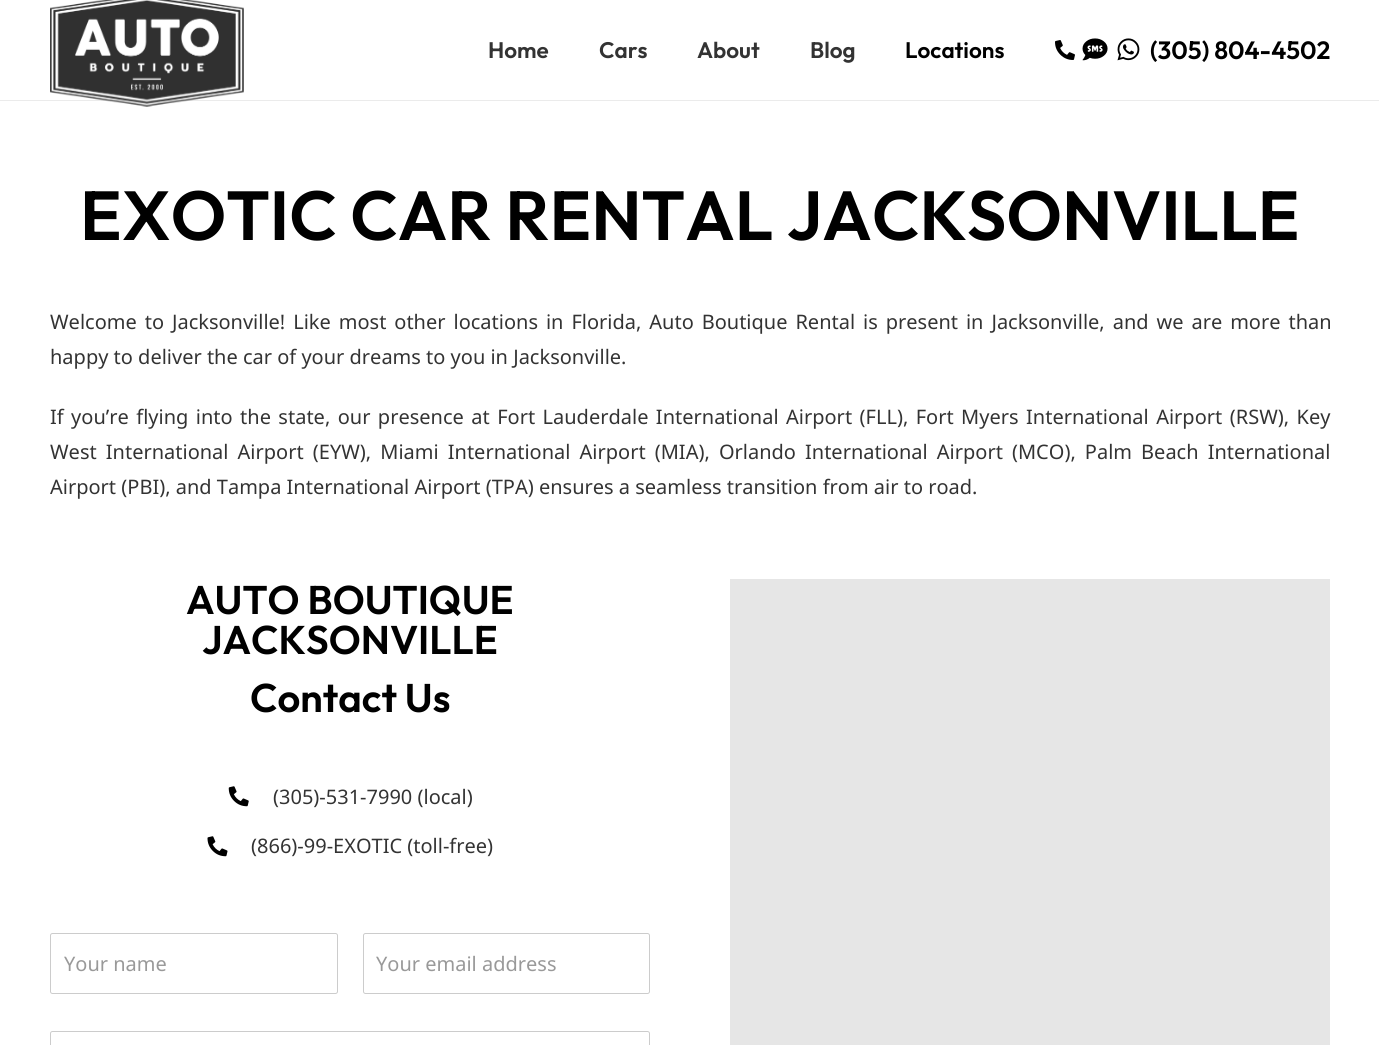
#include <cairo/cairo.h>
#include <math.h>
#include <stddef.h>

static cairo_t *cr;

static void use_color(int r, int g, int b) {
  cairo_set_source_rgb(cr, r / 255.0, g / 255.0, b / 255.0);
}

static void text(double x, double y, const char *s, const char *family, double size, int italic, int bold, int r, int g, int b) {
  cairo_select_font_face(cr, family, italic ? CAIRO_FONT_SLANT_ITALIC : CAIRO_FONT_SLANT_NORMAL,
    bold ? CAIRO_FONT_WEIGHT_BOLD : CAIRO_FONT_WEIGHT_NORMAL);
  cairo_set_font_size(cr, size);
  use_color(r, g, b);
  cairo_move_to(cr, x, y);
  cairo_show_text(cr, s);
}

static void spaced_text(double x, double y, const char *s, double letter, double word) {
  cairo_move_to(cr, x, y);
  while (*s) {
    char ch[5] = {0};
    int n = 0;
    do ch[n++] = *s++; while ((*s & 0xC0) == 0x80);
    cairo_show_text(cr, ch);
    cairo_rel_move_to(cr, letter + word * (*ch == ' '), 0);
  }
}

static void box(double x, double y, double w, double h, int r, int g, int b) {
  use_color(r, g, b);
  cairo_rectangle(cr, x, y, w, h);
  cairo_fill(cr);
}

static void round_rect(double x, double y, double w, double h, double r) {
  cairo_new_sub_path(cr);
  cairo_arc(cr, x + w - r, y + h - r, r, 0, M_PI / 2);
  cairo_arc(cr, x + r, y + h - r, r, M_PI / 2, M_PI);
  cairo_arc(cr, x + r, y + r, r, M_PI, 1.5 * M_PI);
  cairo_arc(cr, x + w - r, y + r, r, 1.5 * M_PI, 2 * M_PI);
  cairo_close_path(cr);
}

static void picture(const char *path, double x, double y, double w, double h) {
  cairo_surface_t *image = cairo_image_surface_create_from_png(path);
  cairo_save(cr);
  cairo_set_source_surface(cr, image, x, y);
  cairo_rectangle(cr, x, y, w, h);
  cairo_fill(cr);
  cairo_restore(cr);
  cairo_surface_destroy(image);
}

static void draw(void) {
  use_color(255, 255, 255);
  cairo_paint(cr);
  box(0, 100, 1379, 1, 235, 235, 235);
  picture("img_01.png", 50, 0, 194, 107);
  picture("img_02.png", 1055, 40, 20, 20);
  picture("img_03.png", 1082, 38, 26, 23);
  picture("img_04.png", 1117, 38, 23, 23);
  picture("img_05.png", 228, 786, 21, 21);
  picture("img_06.png", 207, 836, 21, 21);
  round_rect(50.5, 933.5, 287, 60, 2);
  use_color(204, 204, 204);
  cairo_set_line_width(cr, 1);
  cairo_stroke(cr);
  round_rect(363.5, 933.5, 286, 60, 2);
  cairo_stroke(cr);
  round_rect(50.5, 1031.5, 599, 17, 2);
  cairo_stroke(cr);
  box(730, 579, 600, 466, 230, 230, 230);
  text(488, 58, "Home", "Outfit Thin", 22.5, 0, 0, 51, 51, 51);
  text(599, 58, "Cars", "Outfit Thin", 22.5, 0, 0, 51, 51, 51);
  text(697, 58, "About", "Outfit Thin", 22.5, 0, 0, 51, 51, 51);
  text(810, 58, "Blog", "Outfit Thin", 22.5, 0, 0, 51, 51, 51);
  text(905, 58, "Locations", "Outfit Thin", 22.5, 0, 0, 0, 0, 0);
  text(1150, 59, "(305) 804-4502", "Outfit Thin", 25, 0, 0, 0, 0, 0);
  text(80, 240, "EXOTIC CAR RENTAL JACKSONVILLE", "Outfit Thin", 69.3, 0, 0, 0, 0, 0);
  cairo_select_font_face(cr, "Noto Sans", CAIRO_FONT_SLANT_NORMAL, CAIRO_FONT_WEIGHT_NORMAL);
  cairo_set_font_size(cr, 20);
  use_color(51, 51, 51);
  spaced_text(50, 329, "Welcome to Jacksonville! Like most other locations in Florida, Auto Boutique Rental is present in Jacksonville, and we are more than", 0, 2.75);
  text(50, 364, "happy to deliver the car of your dreams to you in Jacksonville.", "Noto Sans", 20, 0, 0, 51, 51, 51);
  spaced_text(50, 424, "If you’re flying into the state, our presence at Fort Lauderdale International Airport (FLL), Fort Myers International Airport (RSW), Key", 0, 2.25);
  spaced_text(50, 459, "West International Airport (EYW), Miami International Airport (MIA), Orlando International Airport (MCO), Palm Beach International", 0, 3.9);
  text(50, 494, "Airport (PBI), and Tampa International Airport (TPA) ensures a seamless transition from air to road.", "Noto Sans", 20, 0, 0, 51, 51, 51);
  text(186, 614, "AUTO BOUTIQUE", "Outfit Thin", 40, 0, 0, 0, 0, 0);
  text(202, 654, "JACKSONVILLE", "Outfit Thin", 40, 0, 0, 0, 0, 0);
  text(250, 712, "Contact Us", "Outfit Thin", 40, 0, 0, 0, 0, 0);
  text(273, 804, "(305)-531-7990 (local)", "Noto Sans", 20, 0, 0, 51, 51, 51);
  text(251, 853, "(866)-99-EXOTIC (toll-free)", "Noto Sans", 20, 0, 0, 51, 51, 51);
  text(64, 971, "Your name", "Noto Sans", 20, 0, 0, 153, 153, 153);
  text(376, 971, "Your email address", "Noto Sans", 20, 0, 0, 153, 153, 153);
}

int main(void) {
  cairo_surface_t *surface = cairo_image_surface_create(CAIRO_FORMAT_RGB24, 1379, 1045);
  cr = cairo_create(surface);
  cairo_font_options_t *options = cairo_font_options_create();
  cairo_font_options_set_hint_metrics(options, CAIRO_HINT_METRICS_OFF);
  cairo_font_options_set_hint_style(options, CAIRO_HINT_STYLE_NONE);
  cairo_set_font_options(cr, options);
  cairo_set_miter_limit(cr, 4);
  draw();
  cairo_surface_write_to_png(surface, "out.png");
  cairo_font_options_destroy(options);
  cairo_destroy(cr);
  cairo_surface_destroy(surface);
  return 0;
}
